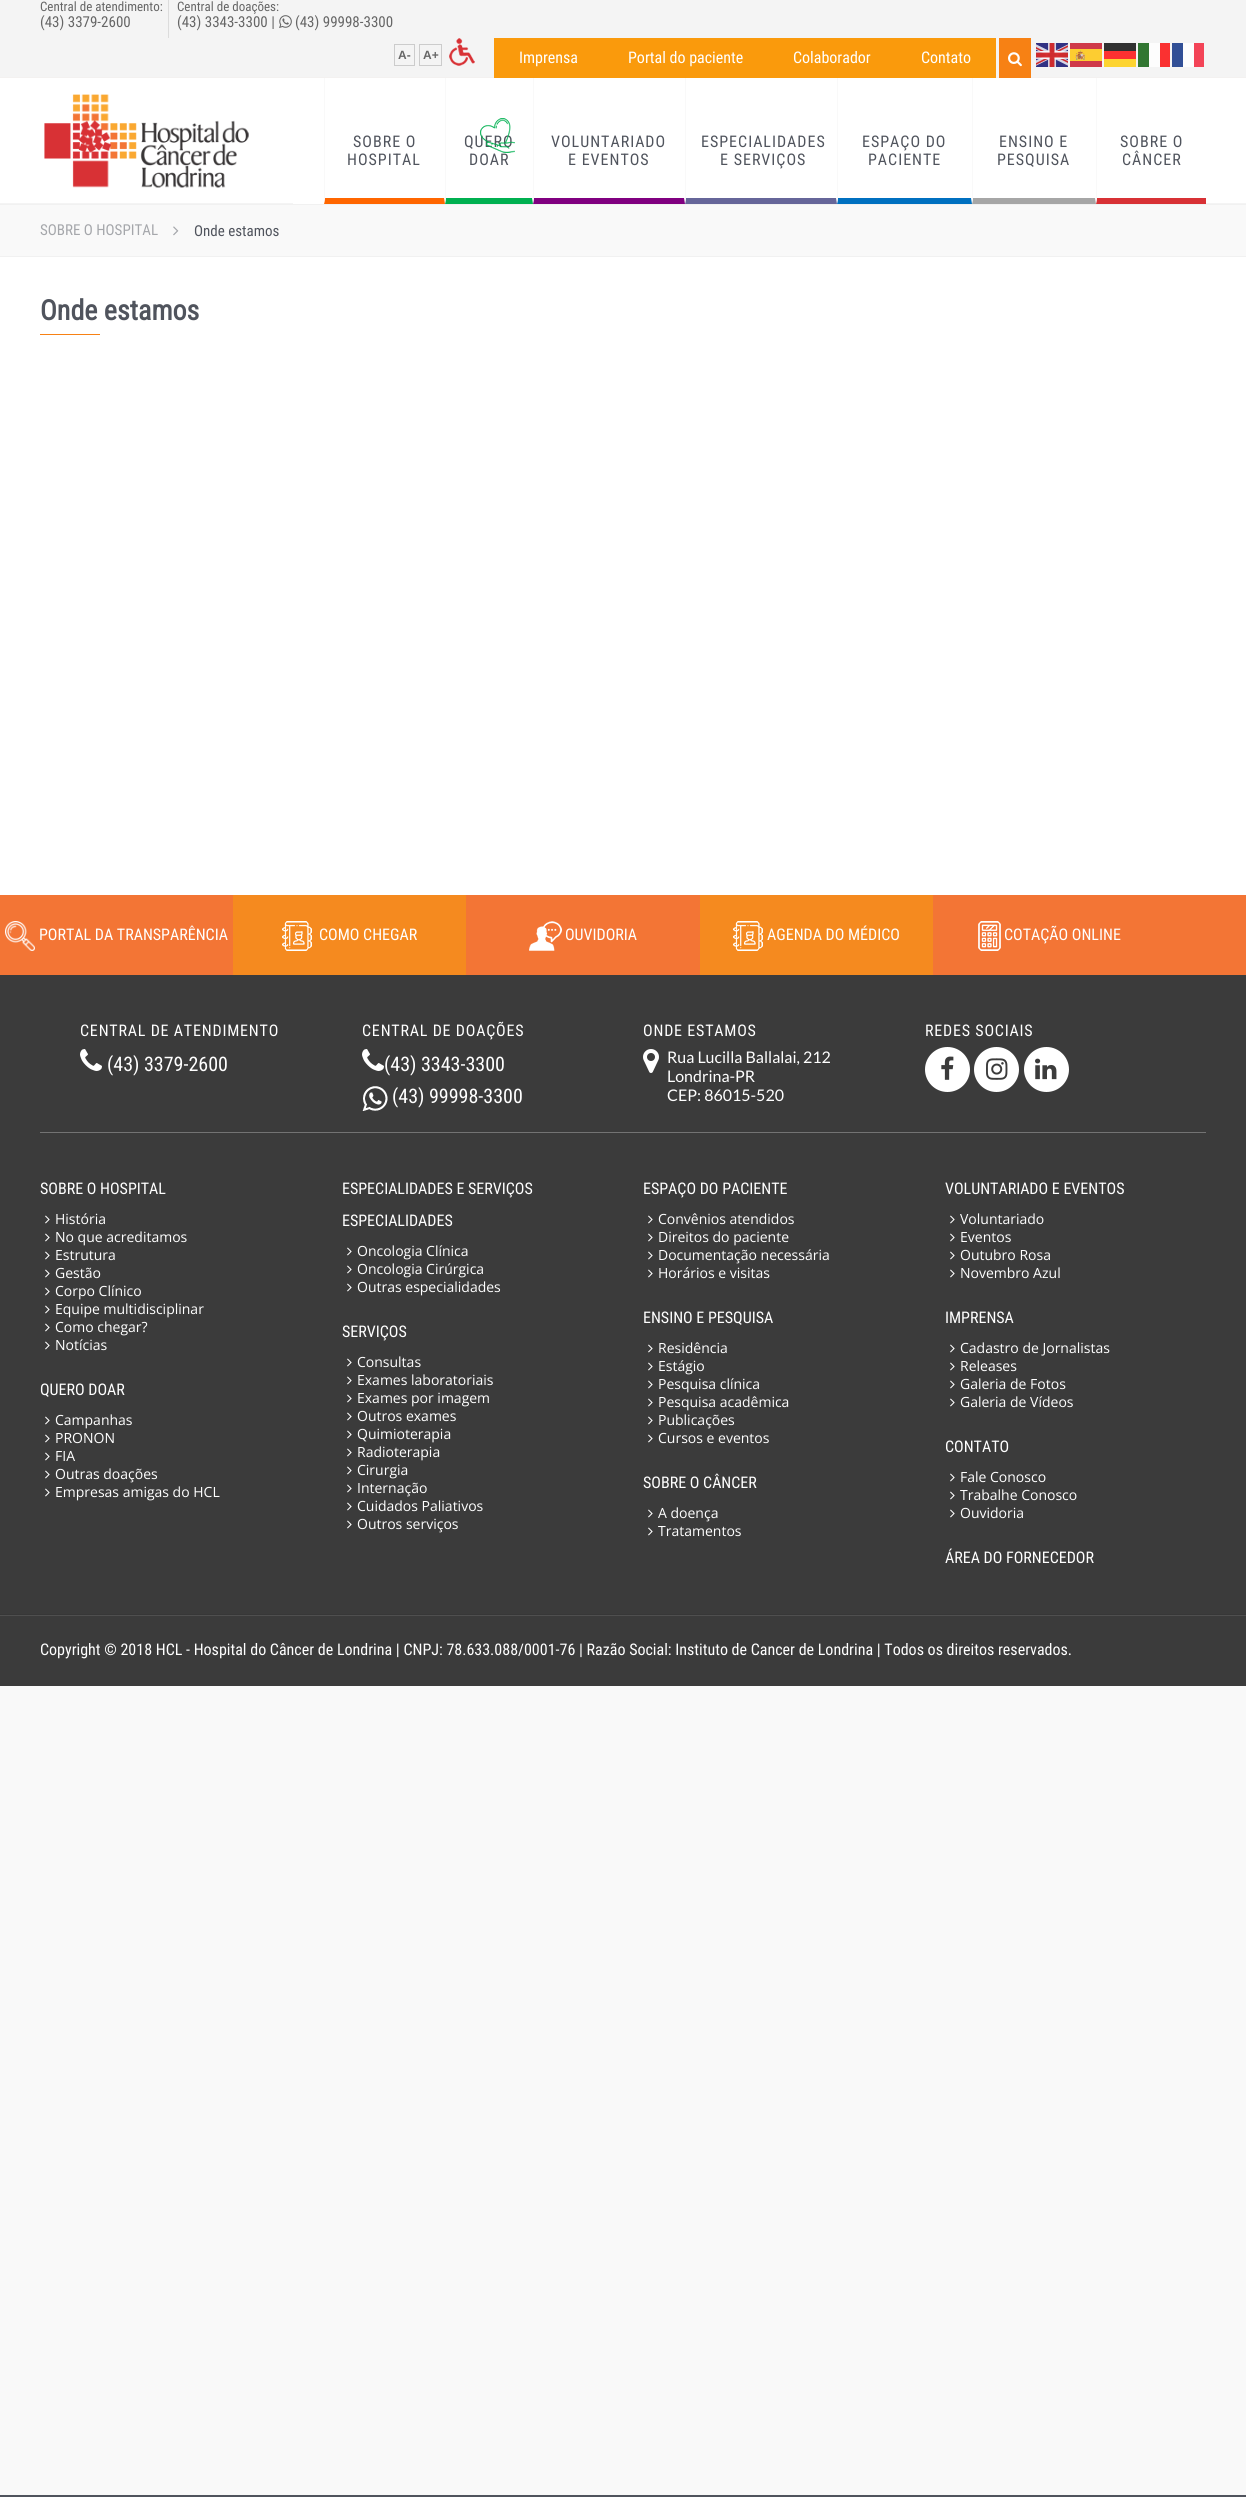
#include <cairo/cairo.h>
#include <math.h>
#include <stddef.h>

static cairo_t *cr;

static void use_color(int r, int g, int b) {
  cairo_set_source_rgb(cr, r / 255.0, g / 255.0, b / 255.0);
}

static void text(double x, double y, const char *s, const char *family, double size, int italic, int bold, int r, int g, int b) {
  cairo_select_font_face(cr, family, italic ? CAIRO_FONT_SLANT_ITALIC : CAIRO_FONT_SLANT_NORMAL,
    bold ? CAIRO_FONT_WEIGHT_BOLD : CAIRO_FONT_WEIGHT_NORMAL);
  cairo_set_font_size(cr, size);
  use_color(r, g, b);
  cairo_move_to(cr, x, y);
  cairo_show_text(cr, s);
}

static void spaced_text(double x, double y, const char *s, double letter, double word) {
  cairo_move_to(cr, x, y);
  while (*s) {
    char ch[5] = {0};
    int n = 0;
    do ch[n++] = *s++; while ((*s & 0xC0) == 0x80);
    cairo_show_text(cr, ch);
    cairo_rel_move_to(cr, letter + word * (*ch == ' '), 0);
  }
}

static void box(double x, double y, double w, double h, int r, int g, int b) {
  use_color(r, g, b);
  cairo_rectangle(cr, x, y, w, h);
  cairo_fill(cr);
}

static void picture(const char *path, double x, double y, double w, double h) {
  cairo_surface_t *image = cairo_image_surface_create_from_png(path);
  cairo_save(cr);
  cairo_set_source_surface(cr, image, x, y);
  cairo_rectangle(cr, x, y, w, h);
  cairo_fill(cr);
  cairo_restore(cr);
  cairo_surface_destroy(image);
}

static void draw(void) {
  use_color(249, 249, 249);
  cairo_paint(cr);
  box(0, 2495, 1246, 2, 80, 84, 93);
  box(0, 0, 1246, 77, 244, 244, 244);
  box(0, 77, 1246, 1, 243, 241, 240);
  box(168, 0, 1, 38, 220, 220, 220);
  picture("img_01.png", 279, 15, 13, 13);
  cairo_rectangle(cr, 394.5, 44.5, 20, 21);
  use_color(204, 204, 204);
  cairo_set_line_width(cr, 1);
  cairo_stroke(cr);
  cairo_rectangle(cr, 419.5, 44.5, 22, 21);
  cairo_stroke(cr);
  picture("img_02.png", 449, 38, 26, 28);
  box(494, 38, 502, 40, 250, 154, 12);
  box(999, 38, 32, 40, 247, 129, 20);
  picture("img_03.png", 1008, 52, 14, 15);
  picture("img_04.png", 1036, 43, 32, 24);
  picture("img_05.png", 1070, 43, 32, 24);
  box(1104, 43, 32, 8, 49, 49, 49);
  box(1138, 43, 11, 24, 49, 118, 49);
  box(1149, 43, 11, 24, 253, 253, 253);
  box(1160, 43, 10, 24, 250, 49, 49);
  box(1172, 43, 11, 24, 49, 79, 150);
  box(1183, 43, 11, 24, 253, 253, 253);
  box(1194, 43, 10, 24, 243, 68, 87);
  box(1104, 51, 32, 8, 253, 49, 49);
  box(1104, 59, 32, 8, 253, 212, 49);
  box(0, 78, 1246, 125, 255, 255, 255);
  box(0, 203, 1246, 1, 244, 244, 244);
  picture("img_06.png", 44, 94, 205, 94);
  box(293, 203, 913, 1, 255, 255, 255);
  use_color(255, 102, 0);
  cairo_new_path(cr);
  cairo_move_to(cr, 445, 204);
  cairo_line_to(cr, 324, 204);
  cairo_line_to(cr, 325, 198);
  cairo_line_to(cr, 444, 198);
  cairo_close_path(cr);
  cairo_fill(cr);
  use_color(249, 249, 249);
  cairo_new_path(cr);
  cairo_move_to(cr, 324, 204);
  cairo_line_to(cr, 324, 78);
  cairo_line_to(cr, 325, 78);
  cairo_line_to(cr, 325, 198);
  cairo_close_path(cr);
  cairo_fill(cr);
  use_color(0, 176, 80);
  cairo_new_path(cr);
  cairo_move_to(cr, 533, 204);
  cairo_line_to(cr, 445, 204);
  cairo_line_to(cr, 446, 198);
  cairo_line_to(cr, 532, 198);
  cairo_close_path(cr);
  cairo_fill(cr);
  use_color(249, 249, 249);
  cairo_new_path(cr);
  cairo_move_to(cr, 445, 204);
  cairo_line_to(cr, 445, 78);
  cairo_line_to(cr, 446, 78);
  cairo_line_to(cr, 446, 198);
  cairo_close_path(cr);
  cairo_fill(cr);
  use_color(128, 0, 128);
  cairo_new_path(cr);
  cairo_move_to(cr, 685, 204);
  cairo_line_to(cr, 533, 204);
  cairo_line_to(cr, 534, 198);
  cairo_line_to(cr, 684, 198);
  cairo_close_path(cr);
  cairo_fill(cr);
  use_color(249, 249, 249);
  cairo_new_path(cr);
  cairo_move_to(cr, 533, 204);
  cairo_line_to(cr, 533, 78);
  cairo_line_to(cr, 534, 78);
  cairo_line_to(cr, 534, 198);
  cairo_close_path(cr);
  cairo_fill(cr);
  use_color(102, 102, 153);
  cairo_new_path(cr);
  cairo_move_to(cr, 837, 204);
  cairo_line_to(cr, 685, 204);
  cairo_line_to(cr, 686, 198);
  cairo_line_to(cr, 836, 198);
  cairo_close_path(cr);
  cairo_fill(cr);
  use_color(249, 249, 249);
  cairo_new_path(cr);
  cairo_move_to(cr, 685, 204);
  cairo_line_to(cr, 685, 78);
  cairo_line_to(cr, 686, 78);
  cairo_line_to(cr, 686, 198);
  cairo_close_path(cr);
  cairo_fill(cr);
  use_color(0, 112, 192);
  cairo_new_path(cr);
  cairo_move_to(cr, 972, 204);
  cairo_line_to(cr, 837, 204);
  cairo_line_to(cr, 838, 198);
  cairo_line_to(cr, 971, 198);
  cairo_close_path(cr);
  cairo_fill(cr);
  use_color(249, 249, 249);
  cairo_new_path(cr);
  cairo_move_to(cr, 837, 204);
  cairo_line_to(cr, 837, 78);
  cairo_line_to(cr, 838, 78);
  cairo_line_to(cr, 838, 198);
  cairo_close_path(cr);
  cairo_fill(cr);
  use_color(166, 166, 166);
  cairo_new_path(cr);
  cairo_move_to(cr, 1096, 204);
  cairo_line_to(cr, 972, 204);
  cairo_line_to(cr, 973, 198);
  cairo_line_to(cr, 1095, 198);
  cairo_close_path(cr);
  cairo_fill(cr);
  use_color(249, 249, 249);
  cairo_new_path(cr);
  cairo_move_to(cr, 972, 204);
  cairo_line_to(cr, 972, 78);
  cairo_line_to(cr, 973, 78);
  cairo_line_to(cr, 973, 198);
  cairo_close_path(cr);
  cairo_fill(cr);
  use_color(216, 49, 53);
  cairo_new_path(cr);
  cairo_move_to(cr, 1206, 204);
  cairo_line_to(cr, 1096, 204);
  cairo_line_to(cr, 1097, 198);
  cairo_line_to(cr, 1206, 198);
  cairo_close_path(cr);
  cairo_fill(cr);
  use_color(249, 249, 249);
  cairo_new_path(cr);
  cairo_move_to(cr, 1096, 204);
  cairo_line_to(cr, 1096, 78);
  cairo_line_to(cr, 1097, 78);
  cairo_line_to(cr, 1097, 198);
  cairo_close_path(cr);
  cairo_fill(cr);
  box(0, 204, 1246, 1, 241, 241, 241);
  box(0, 256, 1246, 1, 241, 241, 241);
  picture("img_08.png", 173, 226, 6, 10);
  box(0, 257, 1246, 638, 255, 255, 255);
  box(40, 334, 60, 1, 247, 129, 20);
  box(0, 895, 1246, 80, 243, 117, 53);
  picture("img_09.png", 5, 921, 30, 30);
  box(233, 895, 233, 80, 245, 138, 31);
  picture("img_10.png", 282, 921, 30, 30);
  picture("img_11.png", 529, 921, 33, 30);
  box(700, 895, 233, 80, 245, 138, 31);
  picture("img_10.png", 733, 921, 30, 30);
  picture("img_12.png", 978, 921, 23, 30);
  box(0, 975, 1246, 639, 59, 59, 59);
  box(40, 1132, 1166, 1, 115, 115, 115);
  picture("img_13.png", 80, 1049, 22, 22);
  picture("img_13.png", 362, 1049, 22, 22);
  picture("img_14.png", 362, 1086, 26, 25);
  picture("img_15.png", 643, 1049, 16, 24);
  use_color(255, 255, 255);
  cairo_arc(cr, 947.5, 1069.5, 22.5, 0, 2 * M_PI);
  cairo_fill(cr);
  picture("img_16.png", 941, 1056, 13, 24);
  cairo_arc(cr, 996.5, 1069.5, 22.5, 0, 2 * M_PI);
  cairo_fill(cr);
  picture("img_17.png", 986, 1058, 22, 22);
  cairo_arc(cr, 1046.5, 1069.5, 22.5, 0, 2 * M_PI);
  cairo_fill(cr);
  picture("img_18.png", 1035, 1058, 22, 22);
  picture("img_19.png", 45, 1215, 5, 9);
  picture("img_19.png", 45, 1233, 5, 9);
  picture("img_19.png", 45, 1251, 5, 9);
  picture("img_19.png", 45, 1269, 5, 9);
  picture("img_19.png", 45, 1287, 5, 9);
  picture("img_19.png", 45, 1305, 5, 9);
  picture("img_19.png", 45, 1323, 5, 9);
  picture("img_19.png", 45, 1341, 5, 9);
  picture("img_19.png", 45, 1416, 5, 9);
  picture("img_19.png", 45, 1434, 5, 9);
  picture("img_19.png", 45, 1452, 5, 9);
  picture("img_19.png", 45, 1470, 5, 9);
  picture("img_19.png", 45, 1488, 5, 9);
  picture("img_19.png", 347, 1247, 5, 9);
  picture("img_19.png", 347, 1265, 5, 9);
  picture("img_19.png", 347, 1283, 5, 9);
  picture("img_19.png", 347, 1358, 5, 9);
  picture("img_19.png", 347, 1376, 5, 9);
  picture("img_19.png", 347, 1394, 5, 9);
  picture("img_19.png", 347, 1412, 5, 9);
  picture("img_19.png", 347, 1430, 5, 9);
  picture("img_19.png", 347, 1448, 5, 9);
  picture("img_19.png", 347, 1466, 5, 9);
  picture("img_19.png", 347, 1484, 5, 9);
  picture("img_19.png", 347, 1502, 5, 9);
  picture("img_19.png", 347, 1520, 5, 9);
  picture("img_19.png", 648, 1215, 5, 9);
  picture("img_19.png", 648, 1233, 5, 9);
  picture("img_19.png", 648, 1251, 5, 9);
  picture("img_19.png", 648, 1269, 5, 9);
  picture("img_19.png", 648, 1344, 5, 9);
  picture("img_19.png", 648, 1362, 5, 9);
  picture("img_19.png", 648, 1380, 5, 9);
  picture("img_19.png", 648, 1398, 5, 9);
  picture("img_19.png", 648, 1416, 5, 9);
  picture("img_19.png", 648, 1434, 5, 9);
  picture("img_19.png", 648, 1509, 5, 9);
  picture("img_19.png", 648, 1527, 5, 9);
  picture("img_19.png", 950, 1215, 5, 9);
  picture("img_19.png", 950, 1233, 5, 9);
  picture("img_19.png", 950, 1251, 5, 9);
  picture("img_19.png", 950, 1269, 5, 9);
  picture("img_19.png", 950, 1344, 5, 9);
  picture("img_19.png", 950, 1362, 5, 9);
  picture("img_19.png", 950, 1380, 5, 9);
  picture("img_19.png", 950, 1398, 5, 9);
  picture("img_19.png", 950, 1473, 5, 9);
  picture("img_19.png", 950, 1491, 5, 9);
  picture("img_19.png", 950, 1509, 5, 9);
  box(0, 1616, 1246, 70, 59, 59, 59);
  box(0, 1615, 1246, 1, 79, 79, 79);
  box(0, 1614, 1246, 1, 55, 55, 55);
  text(40, 11, "Central de atendimento:", "Roboto Condensed", 13, 0, 0, 102, 102, 102);
  text(40, 27, "(43) 3379-2600", "Roboto Condensed", 15, 0, 0, 102, 102, 102);
  text(177, 11, "Central de doações:", "Roboto Condensed", 13, 0, 0, 102, 102, 102);
  text(177, 27, "(43) 3343-3300 |", "Roboto Condensed", 15, 0, 0, 102, 102, 102);
  text(295, 27, "(43) 99998-3300", "Roboto Condensed", 15, 0, 0, 102, 102, 102);
  text(398, 59, "A-", "Liberation Sans", 12, 0, 1, 102, 102, 102);
  text(423, 59, "A+", "Liberation Sans", 12, 0, 1, 102, 102, 102);
  text(519, 63, "Imprensa", "Roboto Condensed", 16, 0, 0, 255, 255, 255);
  text(628, 63, "Portal do paciente", "Roboto Condensed", 16, 0, 0, 255, 255, 255);
  text(793, 63, "Colaborador", "Roboto Condensed", 16, 0, 0, 255, 255, 255);
  text(921, 63, "Contato", "Roboto Condensed", 16, 0, 0, 255, 255, 255);
  use_color(80, 84, 93);
  spaced_text(353, 147, "SOBRE O", 1, 0);
  spaced_text(347, 165, "HOSPITAL", 1, 0);
  spaced_text(464, 147, "QUERO", 1, 0);
  picture("img_07.png", 480, 118, 35, 35);
  spaced_text(469, 165, "DOAR", 1, 0);
  spaced_text(551, 147, "VOLUNTARIADO", 1, 0);
  spaced_text(568, 165, "E EVENTOS", 1, 0);
  spaced_text(701, 147, "ESPECIALIDADES", 1, 0);
  spaced_text(720, 165, "E SERVIÇOS", 1, 0);
  spaced_text(862, 147, "ESPAÇO DO", 1, 0);
  spaced_text(868, 165, "PACIENTE", 1, 0);
  spaced_text(999, 147, "ENSINO E", 1, 0);
  spaced_text(997, 165, "PESQUISA", 1, 0);
  spaced_text(1120, 147, "SOBRE O", 1, 0);
  spaced_text(1122, 165, "CÂNCER", 1, 0);
  text(40, 235, "SOBRE O HOSPITAL", "Roboto Condensed", 15, 0, 0, 165, 167, 171);
  text(194, 236, "Onde estamos", "Roboto Condensed", 15, 0, 0, 80, 84, 93);
  text(40, 320, "Onde estamos", "Roboto Condensed", 28, 0, 1, 80, 84, 93);
  text(39, 940, "PORTAL DA TRANSPARÊNCIA", "Roboto Condensed", 16, 0, 0, 255, 255, 255);
  text(319, 940, "COMO CHEGAR", "Roboto Condensed", 16, 0, 0, 255, 255, 255);
  text(565, 940, "OUVIDORIA", "Roboto Condensed", 16, 0, 0, 255, 255, 255);
  text(767, 940, "AGENDA DO MÉDICO", "Roboto Condensed", 16, 0, 0, 255, 255, 255);
  text(1004, 940, "COTAÇÃO ONLINE", "Roboto Condensed", 16, 0, 0, 255, 255, 255);
  spaced_text(80, 1036, "CENTRAL DE ATENDIMENTO", 0.8, 0);
  text(107, 1071, "(43) 3379-2600", "Roboto Condensed", 20, 0, 0, 255, 255, 255);
  cairo_set_font_size(cr, 16);
  spaced_text(362, 1036, "CENTRAL DE DOAÇÕES", 0.8, 0);
  text(384, 1071, "(43) 3343-3300", "Roboto Condensed", 20, 0, 0, 255, 255, 255);
  text(392, 1103, "(43) 99998-3300", "Roboto Condensed", 20, 0, 0, 255, 255, 255);
  cairo_set_font_size(cr, 16);
  spaced_text(643, 1036, "ONDE ESTAMOS", 0.8, 0);
  text(667, 1063, "Rua Lucilla Ballalai, 212", "Lato", 16, 0, 0, 255, 255, 255);
  text(667, 1082, "Londrina-PR", "Lato", 16, 0, 0, 255, 255, 255);
  text(667, 1101, "CEP: 86015-520", "Lato", 16, 0, 0, 255, 255, 255);
  cairo_select_font_face(cr, "Roboto Condensed", CAIRO_FONT_SLANT_NORMAL, CAIRO_FONT_WEIGHT_NORMAL);
  spaced_text(925, 1036, "REDES SOCIAIS", 0.8, 0);
  text(40, 1194, "SOBRE O HOSPITAL", "Roboto Condensed", 16, 0, 0, 255, 255, 255);
  text(55, 1224, "História", "Open Sans", 14, 0, 0, 255, 255, 255);
  text(55, 1242, "No que acreditamos", "Open Sans", 14, 0, 0, 255, 255, 255);
  text(55, 1260, "Estrutura", "Open Sans", 14, 0, 0, 255, 255, 255);
  text(55, 1278, "Gestão", "Open Sans", 14, 0, 0, 255, 255, 255);
  text(55, 1296, "Corpo Clínico", "Open Sans", 14, 0, 0, 255, 255, 255);
  text(55, 1314, "Equipe multidisciplinar", "Open Sans", 14, 0, 0, 255, 255, 255);
  text(55, 1332, "Como chegar?", "Open Sans", 14, 0, 0, 255, 255, 255);
  text(55, 1350, "Notícias", "Open Sans", 14, 0, 0, 255, 255, 255);
  text(40, 1395, "QUERO DOAR", "Roboto Condensed", 16, 0, 0, 255, 255, 255);
  text(55, 1425, "Campanhas", "Open Sans", 14, 0, 0, 255, 255, 255);
  text(55, 1443, "PRONON", "Open Sans", 14, 0, 0, 255, 255, 255);
  text(55, 1461, "FIA", "Open Sans", 14, 0, 0, 255, 255, 255);
  text(55, 1479, "Outras doações", "Open Sans", 14, 0, 0, 255, 255, 255);
  text(55, 1497, "Empresas amigas do HCL", "Open Sans", 14, 0, 0, 255, 255, 255);
  text(342, 1194, "ESPECIALIDADES E SERVIÇOS", "Roboto Condensed", 16, 0, 0, 255, 255, 255);
  text(342, 1226, "ESPECIALIDADES", "Roboto Condensed", 16, 0, 0, 255, 255, 255);
  text(357, 1256, "Oncologia Clínica", "Open Sans", 14, 0, 0, 255, 255, 255);
  text(357, 1274, "Oncologia Cirúrgica", "Open Sans", 14, 0, 0, 255, 255, 255);
  text(357, 1292, "Outras especialidades", "Open Sans", 14, 0, 0, 255, 255, 255);
  text(342, 1337, "SERVIÇOS", "Roboto Condensed", 16, 0, 0, 255, 255, 255);
  text(357, 1367, "Consultas", "Open Sans", 14, 0, 0, 255, 255, 255);
  text(357, 1385, "Exames laboratoriais", "Open Sans", 14, 0, 0, 255, 255, 255);
  text(357, 1403, "Exames por imagem", "Open Sans", 14, 0, 0, 255, 255, 255);
  text(357, 1421, "Outros exames", "Open Sans", 14, 0, 0, 255, 255, 255);
  text(357, 1439, "Quimioterapia", "Open Sans", 14, 0, 0, 255, 255, 255);
  text(357, 1457, "Radioterapia", "Open Sans", 14, 0, 0, 255, 255, 255);
  text(357, 1475, "Cirurgia", "Open Sans", 14, 0, 0, 255, 255, 255);
  text(357, 1493, "Internação", "Open Sans", 14, 0, 0, 255, 255, 255);
  text(357, 1511, "Cuidados Paliativos", "Open Sans", 14, 0, 0, 255, 255, 255);
  text(357, 1529, "Outros serviços", "Open Sans", 14, 0, 0, 255, 255, 255);
  text(643, 1194, "ESPAÇO DO PACIENTE", "Roboto Condensed", 16, 0, 0, 255, 255, 255);
  text(658, 1224, "Convênios atendidos", "Open Sans", 14, 0, 0, 255, 255, 255);
  text(658, 1242, "Direitos do paciente", "Open Sans", 14, 0, 0, 255, 255, 255);
  text(658, 1260, "Documentação necessária", "Open Sans", 14, 0, 0, 255, 255, 255);
  text(658, 1278, "Horários e visitas", "Open Sans", 14, 0, 0, 255, 255, 255);
  text(643, 1323, "ENSINO E PESQUISA", "Roboto Condensed", 16, 0, 0, 255, 255, 255);
  text(658, 1353, "Residência", "Open Sans", 14, 0, 0, 255, 255, 255);
  text(658, 1371, "Estágio", "Open Sans", 14, 0, 0, 255, 255, 255);
  text(658, 1389, "Pesquisa clínica", "Open Sans", 14, 0, 0, 255, 255, 255);
  text(658, 1407, "Pesquisa acadêmica", "Open Sans", 14, 0, 0, 255, 255, 255);
  text(658, 1425, "Publicações", "Open Sans", 14, 0, 0, 255, 255, 255);
  text(658, 1443, "Cursos e eventos", "Open Sans", 14, 0, 0, 255, 255, 255);
  text(643, 1488, "SOBRE O CÂNCER", "Roboto Condensed", 16, 0, 0, 255, 255, 255);
  text(658, 1518, "A doença", "Open Sans", 14, 0, 0, 255, 255, 255);
  text(658, 1536, "Tratamentos", "Open Sans", 14, 0, 0, 255, 255, 255);
  text(945, 1194, "VOLUNTARIADO E EVENTOS", "Roboto Condensed", 16, 0, 0, 255, 255, 255);
  text(960, 1224, "Voluntariado", "Open Sans", 14, 0, 0, 255, 255, 255);
  text(960, 1242, "Eventos", "Open Sans", 14, 0, 0, 255, 255, 255);
  text(960, 1260, "Outubro Rosa", "Open Sans", 14, 0, 0, 255, 255, 255);
  text(960, 1278, "Novembro Azul", "Open Sans", 14, 0, 0, 255, 255, 255);
  text(945, 1323, "IMPRENSA", "Roboto Condensed", 16, 0, 0, 255, 255, 255);
  text(960, 1353, "Cadastro de Jornalistas", "Open Sans", 14, 0, 0, 255, 255, 255);
  text(960, 1371, "Releases", "Open Sans", 14, 0, 0, 255, 255, 255);
  text(960, 1389, "Galeria de Fotos", "Open Sans", 14, 0, 0, 255, 255, 255);
  text(960, 1407, "Galeria de Vídeos", "Open Sans", 14, 0, 0, 255, 255, 255);
  text(945, 1452, "CONTATO", "Roboto Condensed", 16, 0, 0, 255, 255, 255);
  text(960, 1482, "Fale Conosco", "Open Sans", 14, 0, 0, 255, 255, 255);
  text(960, 1500, "Trabalhe Conosco", "Open Sans", 14, 0, 0, 255, 255, 255);
  text(960, 1518, "Ouvidoria", "Open Sans", 14, 0, 0, 255, 255, 255);
  text(945, 1563, "ÁREA DO FORNECEDOR", "Roboto Condensed", 16, 0, 0, 255, 255, 255);
  text(40, 1655, "Copyright © 2018 HCL - Hospital do Câncer de Londrina | CNPJ: 78.633.088/0001-76 | Razão Social: Instituto de Cancer de Londrina | Todos os direitos reservados.", "Roboto Condensed", 16, 0, 0, 255, 255, 255);
}

int main(void) {
  cairo_surface_t *surface = cairo_image_surface_create(CAIRO_FORMAT_RGB24, 1246, 2497);
  cr = cairo_create(surface);
  cairo_font_options_t *options = cairo_font_options_create();
  cairo_font_options_set_hint_metrics(options, CAIRO_HINT_METRICS_OFF);
  cairo_font_options_set_hint_style(options, CAIRO_HINT_STYLE_NONE);
  cairo_set_font_options(cr, options);
  cairo_set_miter_limit(cr, 4);
  draw();
  cairo_surface_write_to_png(surface, "out.png");
  cairo_font_options_destroy(options);
  cairo_destroy(cr);
  cairo_surface_destroy(surface);
  return 0;
}
